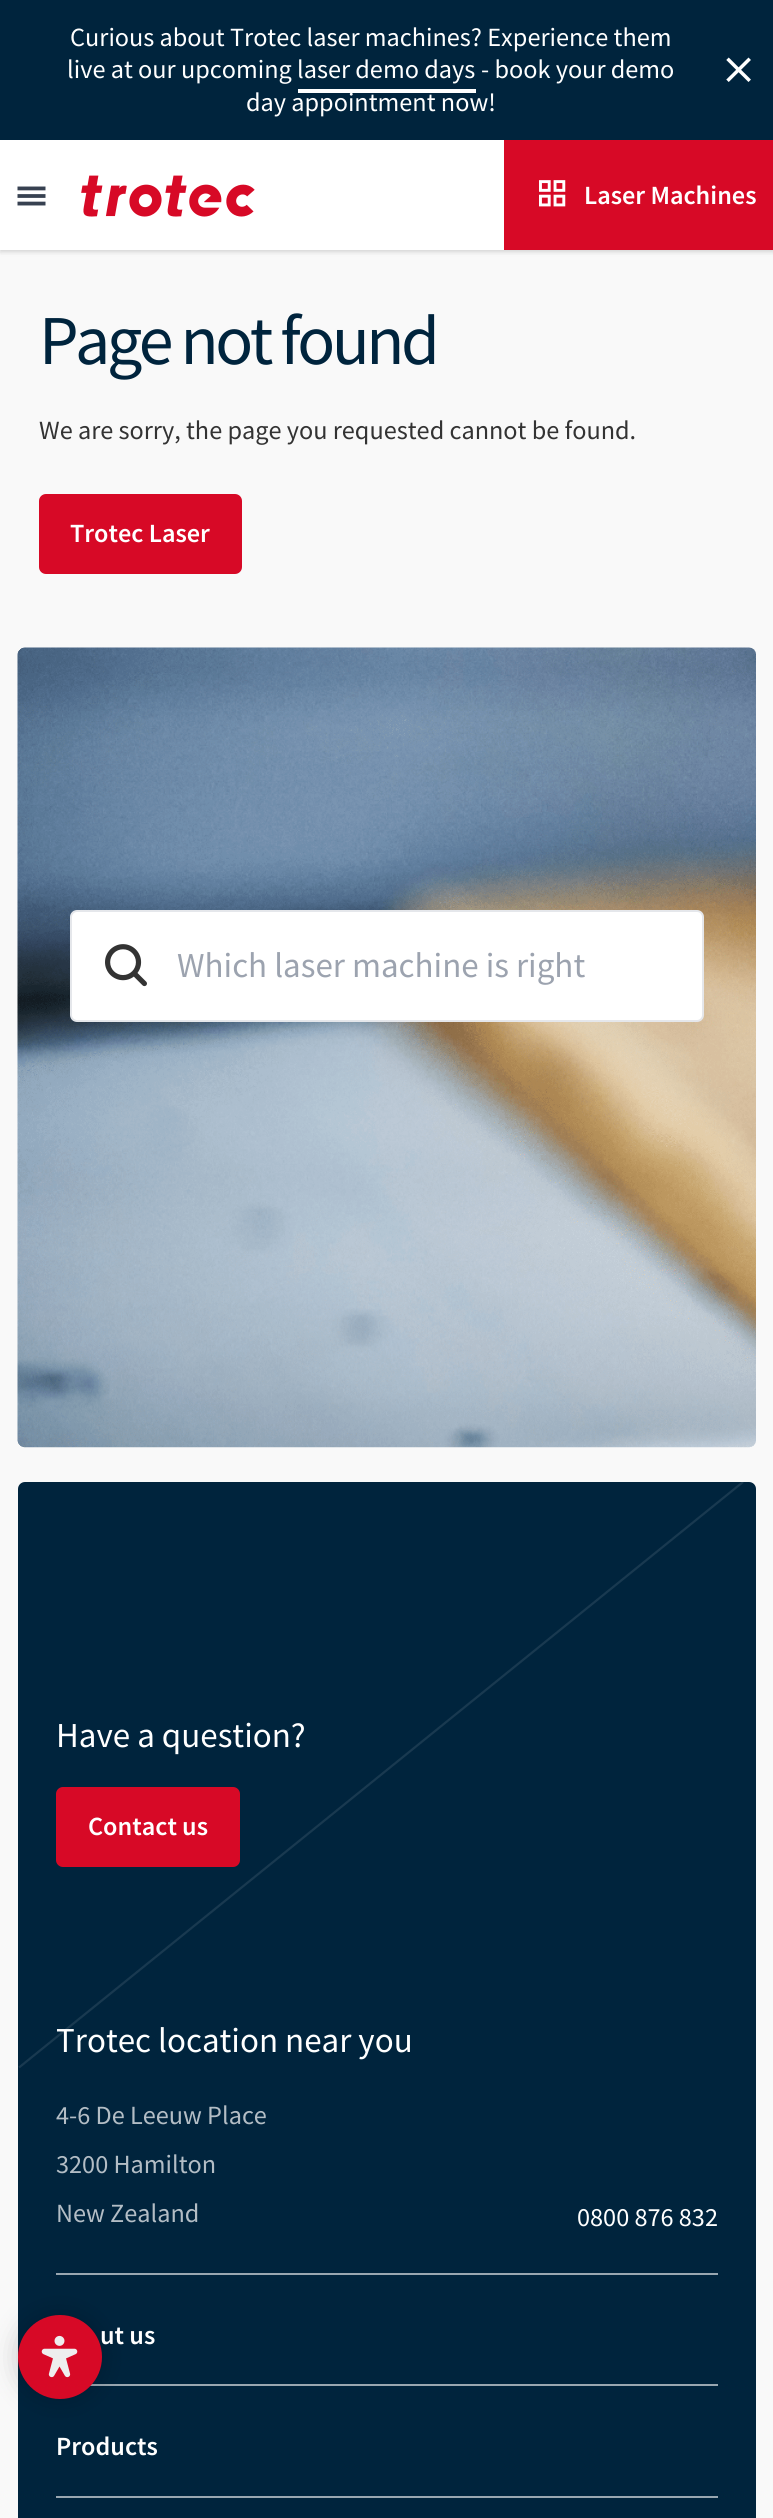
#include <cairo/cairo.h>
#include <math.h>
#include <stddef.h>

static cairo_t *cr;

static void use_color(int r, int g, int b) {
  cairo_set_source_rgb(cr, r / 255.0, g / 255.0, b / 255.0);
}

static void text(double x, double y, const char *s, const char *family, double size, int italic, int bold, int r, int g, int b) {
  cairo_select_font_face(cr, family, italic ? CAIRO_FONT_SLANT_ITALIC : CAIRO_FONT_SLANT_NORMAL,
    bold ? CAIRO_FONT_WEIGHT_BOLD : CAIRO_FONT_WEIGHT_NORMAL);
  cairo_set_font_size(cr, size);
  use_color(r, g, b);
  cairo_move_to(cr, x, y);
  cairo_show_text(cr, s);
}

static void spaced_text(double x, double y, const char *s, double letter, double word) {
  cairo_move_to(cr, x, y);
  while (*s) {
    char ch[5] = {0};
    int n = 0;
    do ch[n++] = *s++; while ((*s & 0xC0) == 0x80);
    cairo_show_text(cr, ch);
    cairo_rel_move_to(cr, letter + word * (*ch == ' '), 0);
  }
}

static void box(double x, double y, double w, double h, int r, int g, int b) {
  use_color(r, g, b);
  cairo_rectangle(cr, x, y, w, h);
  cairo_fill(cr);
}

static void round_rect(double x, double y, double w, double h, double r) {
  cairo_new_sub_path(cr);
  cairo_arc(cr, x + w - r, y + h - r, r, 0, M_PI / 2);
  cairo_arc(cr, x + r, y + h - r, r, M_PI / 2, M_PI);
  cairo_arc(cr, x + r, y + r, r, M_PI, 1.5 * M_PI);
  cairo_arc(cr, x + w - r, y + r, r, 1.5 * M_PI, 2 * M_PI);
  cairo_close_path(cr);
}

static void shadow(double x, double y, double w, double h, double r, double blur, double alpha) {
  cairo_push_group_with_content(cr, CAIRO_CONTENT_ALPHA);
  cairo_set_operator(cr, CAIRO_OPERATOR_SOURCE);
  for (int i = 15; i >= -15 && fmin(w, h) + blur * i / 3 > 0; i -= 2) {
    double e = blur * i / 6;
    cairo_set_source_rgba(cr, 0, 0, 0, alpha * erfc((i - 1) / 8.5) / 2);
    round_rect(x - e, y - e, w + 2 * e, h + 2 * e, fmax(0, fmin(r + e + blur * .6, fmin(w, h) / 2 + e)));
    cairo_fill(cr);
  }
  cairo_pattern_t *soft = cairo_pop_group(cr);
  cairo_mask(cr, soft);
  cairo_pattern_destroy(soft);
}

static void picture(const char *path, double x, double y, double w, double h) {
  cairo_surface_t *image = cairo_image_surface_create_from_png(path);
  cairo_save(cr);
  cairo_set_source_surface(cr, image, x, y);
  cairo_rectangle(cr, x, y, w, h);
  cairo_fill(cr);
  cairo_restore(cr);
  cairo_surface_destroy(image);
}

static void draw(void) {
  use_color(249, 249, 249);
  cairo_paint(cr);
  use_color(0, 0, 0);
  shadow(0, 2, 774, 250, 0, 2, 0.06);
  shadow(0, 2, 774, 250, 0, 2.5, 0.1);
  box(0, 140, 504, 110, 255, 255, 255);
  box(0, 0, 773, 140, 0, 36, 61);
  box(298, 89, 178, 4, 255, 255, 255);
  picture("img_01.png", 726, 57, 25, 25);
  picture("img_02.png", 17, 186, 29, 20);
  picture("img_03.png", 81, 175, 174, 42);
  box(504, 140, 269, 110, 215, 9, 38);
  picture("img_04.png", 539, 180, 27, 27);
  round_rect(41, 496, 199, 76, 5);
  cairo_fill_preserve(cr);
  cairo_set_line_width(cr, 4);
  cairo_stroke(cr);
  picture("img_05.png", 17, 647, 739, 801);
  use_color(255, 255, 255);
  round_rect(71, 911, 632, 110, 6);
  cairo_fill_preserve(cr);
  use_color(229, 231, 235);
  cairo_set_line_width(cr, 2);
  cairo_stroke(cr);
  picture("img_06.png", 105, 944, 42, 43);
  use_color(0, 36, 61);
  round_rect(18, 1482, 738, 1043, 7);
  cairo_fill(cr);
  cairo_new_path(cr);
  cairo_move_to(cr, 19, 2067.5);
  cairo_line_to(cr, 743, 1482);
  cairo_set_source_rgba(cr, 1, 1, 1, 0.1);
  cairo_set_line_width(cr, 2.2);
  cairo_stroke(cr);
  use_color(215, 9, 38);
  round_rect(58, 1789, 180, 76, 5);
  cairo_fill_preserve(cr);
  cairo_set_line_width(cr, 4);
  cairo_stroke(cr);
  box(56, 2273, 662, 2, 153, 167, 177);
  box(90, 2384, 628, 2, 153, 167, 177);
  box(56, 2496, 662, 2, 153, 167, 177);
  use_color(0, 0, 0);
  shadow(18, 2315, 84, 84, 42, 13, 0.2);
  text(70, 46, "Curious about Trotec laser machines? Experience them", "Source Sans Pro", 26.25, 0, 0, 255, 255, 255);
  text(67, 78, "live at our upcoming laser demo days", "Source Sans Pro", 26.25, 0, 0, 255, 255, 255);
  text(481, 78, "- book your demo", "Source Sans Pro", 26.25, 0, 0, 255, 255, 255);
  text(246, 111, "day appointment now!", "Source Sans Pro", 26.25, 0, 0, 255, 255, 255);
  text(584, 204, "Laser Machines", "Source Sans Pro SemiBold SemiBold", 26.25, 0, 0, 255, 255, 255);
  cairo_select_font_face(cr, "Source Sans Pro", CAIRO_FONT_SLANT_NORMAL, CAIRO_FONT_WEIGHT_NORMAL);
  cairo_set_font_size(cr, 70);
  use_color(0, 36, 61);
  spaced_text(39, 364, "Page not found", -3.5, 0);
  text(39, 439, "We are sorry, the page you requested cannot be found.", "Source Sans Pro", 26.25, 0, 0, 51, 51, 51);
  text(70, 542, "Trotec Laser", "Source Sans Pro SemiBold SemiBold", 26.25, 0, 0, 255, 255, 255);
  text(177, 977, "Which laser machine is right", "Source Sans Pro", 35, 0, 0, 156, 163, 175);
  text(56, 1747, "Have a question?", "Source Sans Pro", 35, 0, 0, 255, 255, 255);
  text(88, 1835, "Contact us", "Source Sans Pro SemiBold SemiBold", 26.25, 0, 0, 255, 255, 255);
  text(56, 2052, "Trotec location near you", "Source Sans Pro", 35, 0, 0, 255, 255, 255);
  text(56, 2124, "4-6 De Leeuw Place", "Source Sans Pro", 26.25, 0, 0, 179, 189, 197);
  text(56, 2173, "3200 Hamilton", "Source Sans Pro", 26.25, 0, 0, 179, 189, 197);
  text(56, 2222, "New Zealand", "Source Sans Pro", 26.25, 0, 0, 179, 189, 197);
  text(577, 2226, "0800 876 832", "Source Sans Pro", 26.25, 0, 0, 255, 255, 255);
  text(100, 2344, "ut us", "Source Sans Pro SemiBold SemiBold", 26.25, 0, 0, 255, 255, 255);
  text(56, 2455, "Products", "Source Sans Pro SemiBold SemiBold", 26.25, 0, 0, 255, 255, 255);
  use_color(215, 9, 38);
  cairo_new_path(cr);
  cairo_arc(cr, 60, 2357, 42, 0, 2 * M_PI);
  cairo_fill(cr);
  picture("img_07.png", 41, 2335, 37, 43);
}

int main(void) {
  cairo_surface_t *surface = cairo_image_surface_create(CAIRO_FORMAT_RGB24, 773, 2518);
  cr = cairo_create(surface);
  cairo_font_options_t *options = cairo_font_options_create();
  cairo_font_options_set_hint_metrics(options, CAIRO_HINT_METRICS_OFF);
  cairo_font_options_set_hint_style(options, CAIRO_HINT_STYLE_NONE);
  cairo_set_font_options(cr, options);
  cairo_set_miter_limit(cr, 4);
  draw();
  cairo_surface_write_to_png(surface, "out.png");
  cairo_font_options_destroy(options);
  cairo_destroy(cr);
  cairo_surface_destroy(surface);
  return 0;
}
